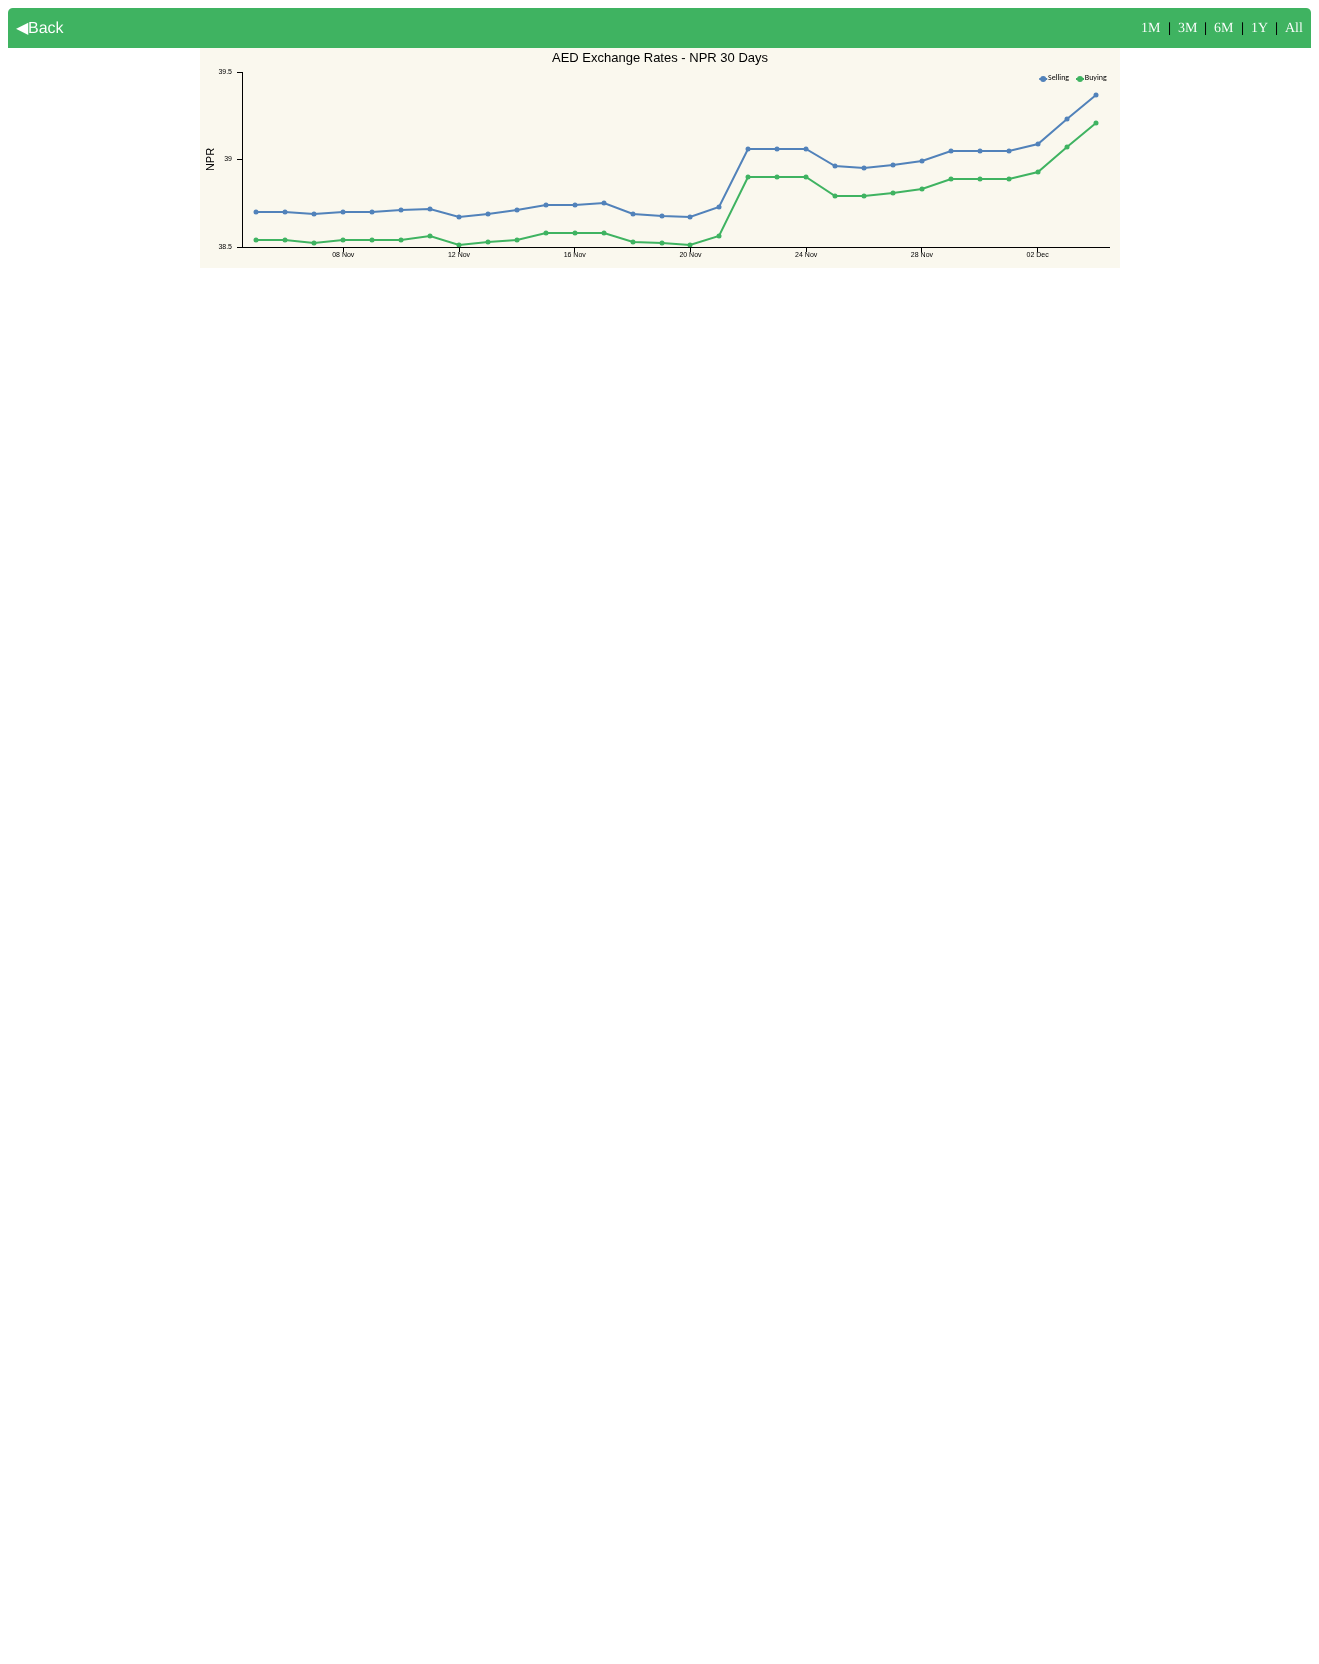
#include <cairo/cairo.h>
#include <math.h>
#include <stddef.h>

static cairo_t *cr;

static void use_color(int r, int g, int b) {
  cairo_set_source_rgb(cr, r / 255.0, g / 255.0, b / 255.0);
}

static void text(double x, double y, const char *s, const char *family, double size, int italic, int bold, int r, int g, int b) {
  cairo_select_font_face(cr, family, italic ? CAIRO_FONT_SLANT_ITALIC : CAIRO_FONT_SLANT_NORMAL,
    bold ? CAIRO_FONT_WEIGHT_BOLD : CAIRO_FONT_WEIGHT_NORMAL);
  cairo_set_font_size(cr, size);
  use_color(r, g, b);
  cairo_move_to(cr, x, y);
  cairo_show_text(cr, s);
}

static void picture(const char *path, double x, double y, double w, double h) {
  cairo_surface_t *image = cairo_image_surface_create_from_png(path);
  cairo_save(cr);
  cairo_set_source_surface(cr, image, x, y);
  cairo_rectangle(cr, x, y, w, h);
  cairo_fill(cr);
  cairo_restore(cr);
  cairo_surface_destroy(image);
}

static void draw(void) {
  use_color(255, 255, 255);
  cairo_paint(cr);
  use_color(63, 179, 97);
  cairo_new_path(cr);
  cairo_move_to(cr, 13, 8);
  cairo_line_to(cr, 1306, 8);
  cairo_curve_to(cr, 1309, 8, 1311, 10, 1311, 13);
  cairo_line_to(cr, 1311, 48);
  cairo_line_to(cr, 8, 48);
  cairo_line_to(cr, 8, 13);
  cairo_curve_to(cr, 8, 10, 10, 8, 13, 8);
  cairo_close_path(cr);
  cairo_fill(cr);
  picture("img_01.png", 200, 48, 920, 220);
  text(16, 33, "◀", "DejaVu Sans", 16, 0, 0, 255, 255, 255);
  text(28, 33, "Back", "Liberation Sans", 16, 0, 0, 255, 255, 255);
  text(1141, 32, "1M", "Liberation Serif", 14, 0, 0, 255, 255, 255);
  text(1168, 32, "|", "Liberation Serif", 14, 0, 1, 0, 0, 0);
  text(1178, 32, "3M", "Liberation Serif", 14, 0, 0, 255, 255, 255);
  text(1204, 32, "|", "Liberation Serif", 14, 0, 1, 0, 0, 0);
  text(1214, 32, "6M", "Liberation Serif", 14, 0, 0, 255, 255, 255);
  text(1241, 32, "|", "Liberation Serif", 14, 0, 1, 0, 0, 0);
  text(1251, 32, "1Y", "Liberation Serif", 14, 0, 0, 255, 255, 255);
  text(1275, 32, "|", "Liberation Serif", 14, 0, 1, 0, 0, 0);
  text(1285, 32, "All", "Liberation Serif", 14, 0, 0, 255, 255, 255);
}

int main(void) {
  cairo_surface_t *surface = cairo_image_surface_create(CAIRO_FORMAT_RGB24, 1319, 1664);
  cr = cairo_create(surface);
  cairo_font_options_t *options = cairo_font_options_create();
  cairo_font_options_set_hint_metrics(options, CAIRO_HINT_METRICS_OFF);
  cairo_font_options_set_hint_style(options, CAIRO_HINT_STYLE_NONE);
  cairo_set_font_options(cr, options);
  cairo_set_miter_limit(cr, 4);
  draw();
  cairo_surface_write_to_png(surface, "out.png");
  cairo_font_options_destroy(options);
  cairo_destroy(cr);
  cairo_surface_destroy(surface);
  return 0;
}
